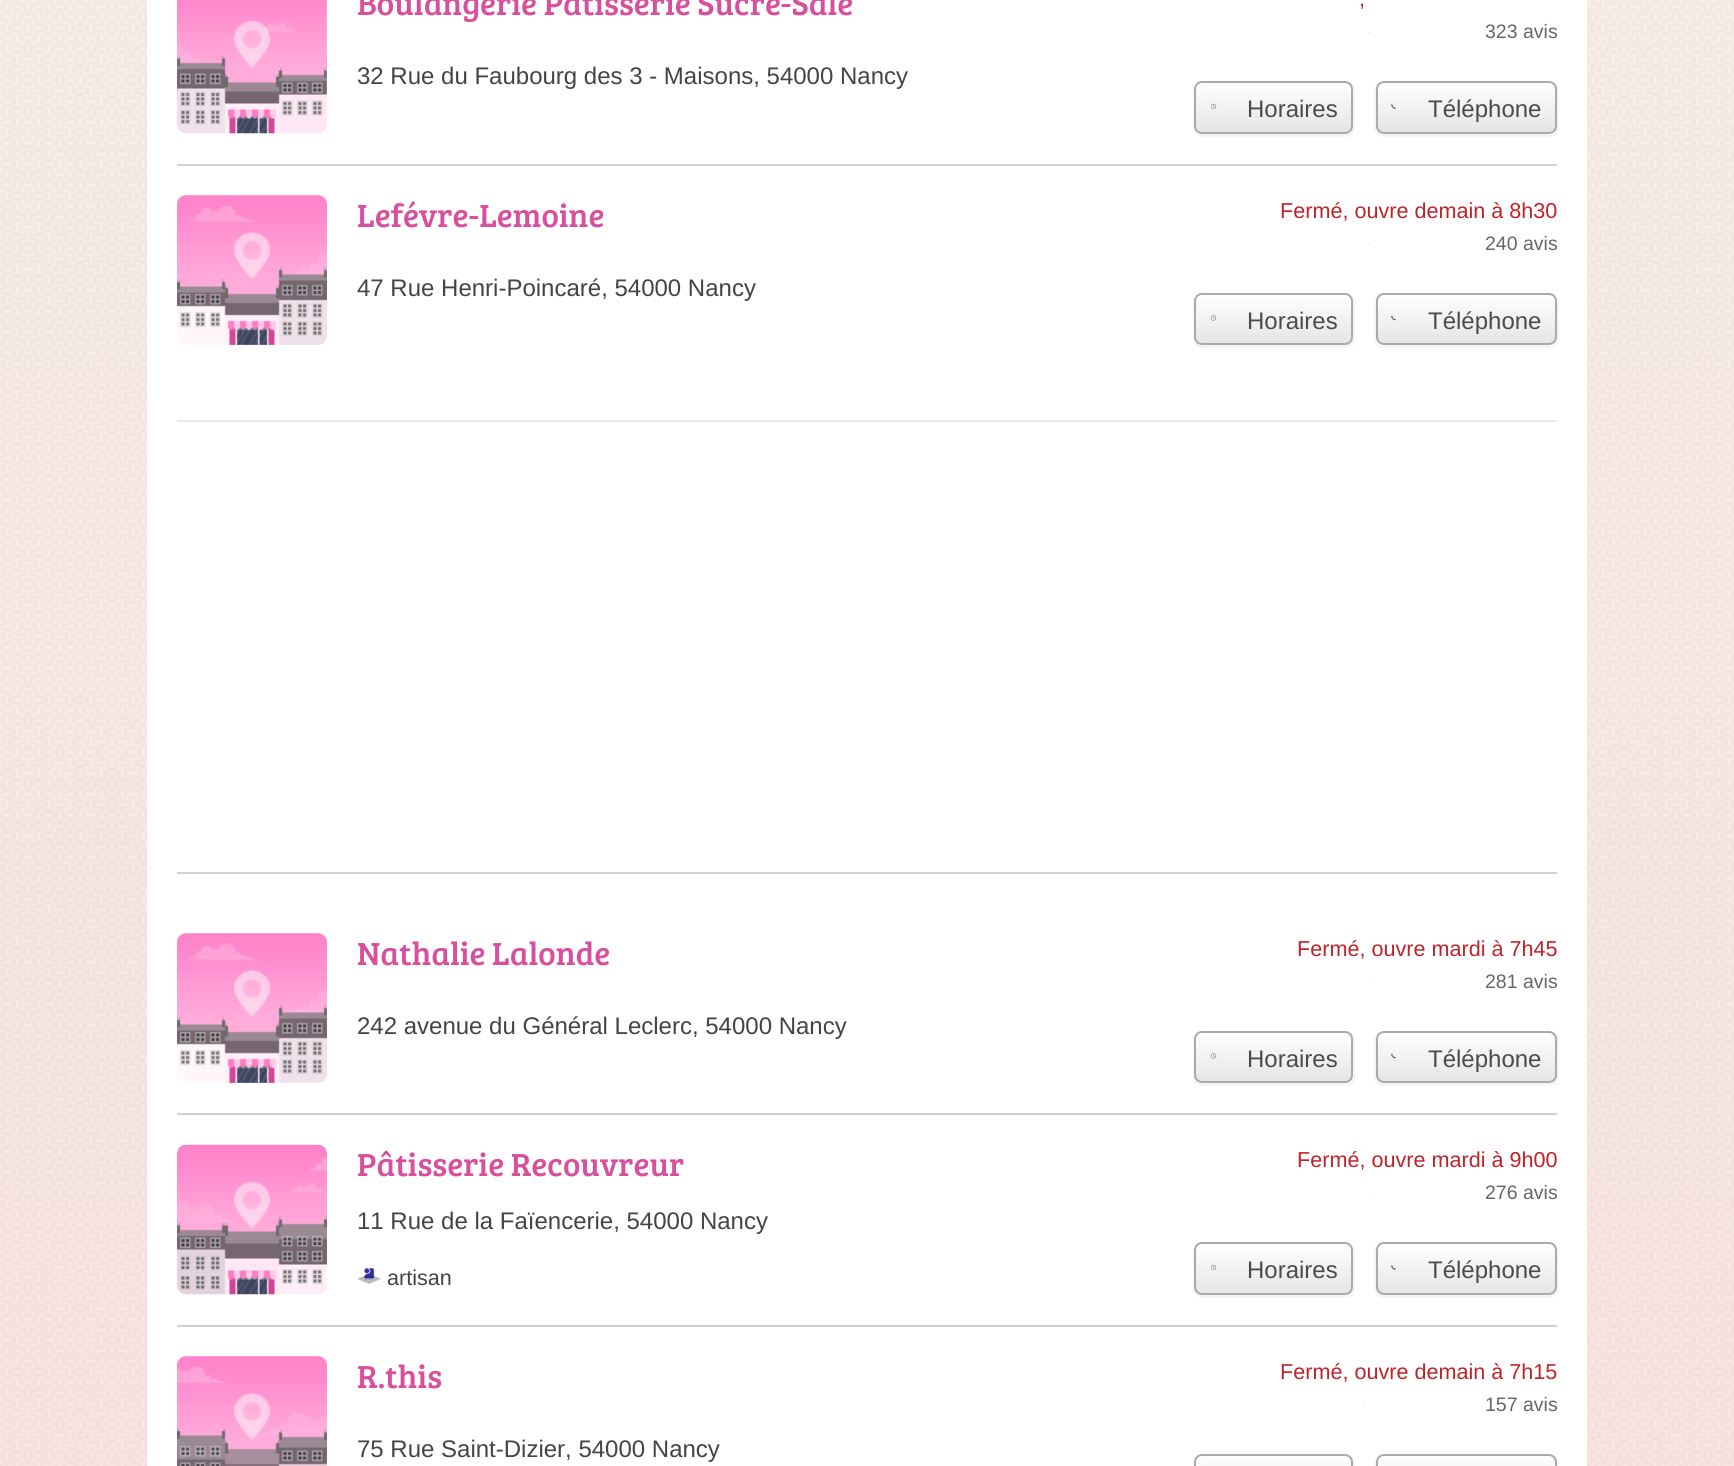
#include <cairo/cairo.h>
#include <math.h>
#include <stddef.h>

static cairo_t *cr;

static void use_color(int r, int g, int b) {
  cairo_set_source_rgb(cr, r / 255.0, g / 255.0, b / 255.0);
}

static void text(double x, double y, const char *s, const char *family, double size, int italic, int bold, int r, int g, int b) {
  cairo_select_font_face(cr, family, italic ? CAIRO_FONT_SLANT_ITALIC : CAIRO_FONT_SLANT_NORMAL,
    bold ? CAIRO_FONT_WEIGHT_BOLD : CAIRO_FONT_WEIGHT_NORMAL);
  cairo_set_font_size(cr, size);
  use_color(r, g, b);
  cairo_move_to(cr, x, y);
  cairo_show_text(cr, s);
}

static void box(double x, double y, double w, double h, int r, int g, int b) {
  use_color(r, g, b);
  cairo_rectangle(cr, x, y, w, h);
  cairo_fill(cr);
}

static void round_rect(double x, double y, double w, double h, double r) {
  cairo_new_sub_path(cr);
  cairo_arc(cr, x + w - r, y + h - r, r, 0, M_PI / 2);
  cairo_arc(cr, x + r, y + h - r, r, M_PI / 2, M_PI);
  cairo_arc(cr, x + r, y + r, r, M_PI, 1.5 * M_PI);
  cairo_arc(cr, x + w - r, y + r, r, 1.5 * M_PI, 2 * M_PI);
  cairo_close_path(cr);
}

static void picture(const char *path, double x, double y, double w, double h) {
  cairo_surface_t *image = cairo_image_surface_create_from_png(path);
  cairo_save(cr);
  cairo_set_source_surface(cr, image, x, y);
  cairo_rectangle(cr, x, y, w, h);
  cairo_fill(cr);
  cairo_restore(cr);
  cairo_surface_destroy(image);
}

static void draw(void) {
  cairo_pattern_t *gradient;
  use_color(255, 255, 255);
  cairo_paint(cr);
  picture("img_01.png", 0, 0, 1734, 1466);
  box(147, 0, 1440, 1466, 255, 255, 255);
  box(177, 420, 1380, 2, 234, 233, 223);
  box(177, 164, 1380, 2, 209, 209, 209);
  picture("img_02.png", 177, 0, 150, 134);
  box(1369, 32, 1, 1, 214, 214, 214);
  use_color(245, 245, 245);
  cairo_new_path(cr);
  cairo_move_to(cr, 1355, 90);
  cairo_curve_to(cr, 1355, 85, 1351, 81, 1346, 81);
  cairo_curve_to(cr, 1350, 81, 1353, 84, 1353, 88);
  cairo_line_to(cr, 1353, 126);
  cairo_curve_to(cr, 1353, 130, 1350, 134, 1346, 134);
  cairo_line_to(cr, 1201, 134);
  cairo_curve_to(cr, 1197, 134, 1194, 130, 1194, 126);
  cairo_line_to(cr, 1194, 88);
  cairo_curve_to(cr, 1194, 86, 1195, 85, 1196, 84);
  cairo_curve_to(cr, 1194, 85, 1193, 88, 1193, 90);
  cairo_line_to(cr, 1193, 128);
  cairo_curve_to(cr, 1193, 133, 1197, 137, 1202, 137);
  cairo_line_to(cr, 1346, 137);
  cairo_curve_to(cr, 1351, 137, 1355, 133, 1355, 128);
  cairo_close_path(cr);
  cairo_fill(cr);
  cairo_save(cr);
  round_rect(1194, 81, 159, 53, 8);
  cairo_clip(cr);
  gradient = cairo_pattern_create_linear(1274, 82, 1274, 132);
  cairo_pattern_add_color_stop_rgba(gradient, 0, 1, 1, 1, 1);
  cairo_pattern_add_color_stop_rgba(gradient, 1, 0.898, 0.898, 0.898, 1);
  cairo_set_source(cr, gradient);
  cairo_pattern_destroy(gradient);
  cairo_rectangle(cr, 1194, 83, 159, 49);
  cairo_fill(cr);
  cairo_restore(cr);
  round_rect(1195, 82, 157, 51, 7);
  use_color(170, 170, 170);
  cairo_stroke(cr);
  picture("img_03.png", 1210, 103, 7, 7);
  use_color(245, 245, 245);
  cairo_new_path(cr);
  cairo_move_to(cr, 1559, 90);
  cairo_curve_to(cr, 1559, 85, 1555, 81, 1550, 81);
  cairo_curve_to(cr, 1554, 81, 1557, 84, 1557, 88);
  cairo_line_to(cr, 1557, 126);
  cairo_curve_to(cr, 1557, 130, 1554, 134, 1550, 134);
  cairo_line_to(cr, 1383, 134);
  cairo_curve_to(cr, 1379, 134, 1376, 130, 1376, 126);
  cairo_line_to(cr, 1376, 88);
  cairo_curve_to(cr, 1376, 85, 1377, 82, 1380, 81);
  cairo_curve_to(cr, 1377, 83, 1374, 86, 1374, 90);
  cairo_line_to(cr, 1374, 128);
  cairo_curve_to(cr, 1374, 133, 1378, 137, 1383, 137);
  cairo_line_to(cr, 1550, 137);
  cairo_curve_to(cr, 1555, 137, 1559, 133, 1559, 128);
  cairo_close_path(cr);
  cairo_fill(cr);
  cairo_save(cr);
  round_rect(1376, 81, 181, 53, 8);
  cairo_clip(cr);
  gradient = cairo_pattern_create_linear(1466, 82, 1466, 132);
  cairo_pattern_add_color_stop_rgba(gradient, 0, 1, 1, 1, 1);
  cairo_pattern_add_color_stop_rgba(gradient, 1, 0.898, 0.898, 0.898, 1);
  cairo_set_source(cr, gradient);
  cairo_pattern_destroy(gradient);
  cairo_rectangle(cr, 1376, 83, 181, 49);
  cairo_fill(cr);
  cairo_restore(cr);
  round_rect(1377, 82, 179, 51, 7);
  use_color(170, 170, 170);
  cairo_stroke(cr);
  picture("img_04.png", 1391, 104, 5, 5);
  picture("img_05.png", 177, 195, 150, 150);
  picture("img_06.png", 1369, 243, 1, 2);
  use_color(245, 245, 245);
  cairo_new_path(cr);
  cairo_move_to(cr, 1195, 297);
  cairo_curve_to(cr, 1194, 298, 1193, 300, 1193, 302);
  cairo_line_to(cr, 1193, 339);
  cairo_curve_to(cr, 1193, 344, 1197, 348, 1202, 348);
  cairo_line_to(cr, 1346, 348);
  cairo_curve_to(cr, 1351, 348, 1355, 344, 1355, 339);
  cairo_line_to(cr, 1355, 302);
  cairo_curve_to(cr, 1355, 299, 1353, 296, 1350, 294);
  cairo_curve_to(cr, 1352, 295, 1353, 297, 1353, 300);
  cairo_line_to(cr, 1353, 338);
  cairo_curve_to(cr, 1353, 342, 1350, 345, 1346, 345);
  cairo_line_to(cr, 1201, 345);
  cairo_curve_to(cr, 1197, 345, 1194, 342, 1194, 338);
  cairo_line_to(cr, 1194, 300);
  cairo_close_path(cr);
  cairo_fill(cr);
  cairo_save(cr);
  round_rect(1194, 293, 159, 52, 8);
  cairo_clip(cr);
  gradient = cairo_pattern_create_linear(1274, 294, 1274, 344);
  cairo_pattern_add_color_stop_rgba(gradient, 0, 1, 1, 1, 1);
  cairo_pattern_add_color_stop_rgba(gradient, 1, 0.898, 0.898, 0.898, 1);
  cairo_set_source(cr, gradient);
  cairo_pattern_destroy(gradient);
  cairo_rectangle(cr, 1194, 294, 159, 50);
  cairo_fill(cr);
  cairo_restore(cr);
  round_rect(1195, 294, 157, 50, 7);
  use_color(170, 170, 170);
  cairo_stroke(cr);
  picture("img_07.png", 1210, 315, 7, 6);
  use_color(245, 245, 245);
  cairo_new_path(cr);
  cairo_move_to(cr, 1377, 295);
  cairo_curve_to(cr, 1375, 297, 1374, 299, 1374, 302);
  cairo_line_to(cr, 1374, 339);
  cairo_curve_to(cr, 1374, 344, 1378, 348, 1383, 348);
  cairo_line_to(cr, 1550, 348);
  cairo_curve_to(cr, 1555, 348, 1559, 344, 1559, 339);
  cairo_line_to(cr, 1559, 302);
  cairo_curve_to(cr, 1559, 299, 1557, 296, 1554, 294);
  cairo_curve_to(cr, 1556, 295, 1557, 297, 1557, 300);
  cairo_line_to(cr, 1557, 338);
  cairo_curve_to(cr, 1557, 342, 1554, 345, 1550, 345);
  cairo_line_to(cr, 1383, 345);
  cairo_curve_to(cr, 1379, 345, 1376, 342, 1376, 338);
  cairo_line_to(cr, 1376, 300);
  cairo_curve_to(cr, 1376, 298, 1376, 296, 1377, 295);
  cairo_close_path(cr);
  cairo_fill(cr);
  cairo_save(cr);
  round_rect(1376, 293, 181, 52, 8);
  cairo_clip(cr);
  gradient = cairo_pattern_create_linear(1466, 294, 1466, 344);
  cairo_pattern_add_color_stop_rgba(gradient, 0, 1, 1, 1, 1);
  cairo_pattern_add_color_stop_rgba(gradient, 1, 0.898, 0.898, 0.898, 1);
  cairo_set_source(cr, gradient);
  cairo_pattern_destroy(gradient);
  cairo_rectangle(cr, 1376, 294, 181, 50);
  cairo_fill(cr);
  cairo_restore(cr);
  round_rect(1377, 294, 179, 50, 7);
  use_color(170, 170, 170);
  cairo_stroke(cr);
  picture("img_08.png", 1391, 315, 5, 6);
  box(177, 872, 1380, 2, 209, 209, 209);
  box(177, 1113, 1380, 2, 209, 209, 209);
  picture("img_05.png", 177, 933, 150, 150);
  box(1369, 982, 1, 1, 240, 240, 240);
  use_color(245, 245, 245);
  cairo_new_path(cr);
  cairo_move_to(cr, 1195, 1035);
  cairo_curve_to(cr, 1194, 1036, 1193, 1038, 1193, 1040);
  cairo_line_to(cr, 1193, 1077);
  cairo_curve_to(cr, 1193, 1082, 1197, 1086, 1202, 1086);
  cairo_line_to(cr, 1346, 1086);
  cairo_curve_to(cr, 1351, 1086, 1355, 1082, 1355, 1077);
  cairo_line_to(cr, 1355, 1040);
  cairo_curve_to(cr, 1355, 1037, 1353, 1034, 1350, 1032);
  cairo_curve_to(cr, 1352, 1033, 1353, 1035, 1353, 1038);
  cairo_line_to(cr, 1353, 1076);
  cairo_curve_to(cr, 1353, 1080, 1350, 1083, 1346, 1083);
  cairo_line_to(cr, 1201, 1083);
  cairo_curve_to(cr, 1197, 1083, 1194, 1080, 1194, 1076);
  cairo_line_to(cr, 1194, 1038);
  cairo_close_path(cr);
  cairo_fill(cr);
  cairo_save(cr);
  round_rect(1194, 1031, 159, 52, 8);
  cairo_clip(cr);
  gradient = cairo_pattern_create_linear(1274, 1032, 1274, 1082);
  cairo_pattern_add_color_stop_rgba(gradient, 0, 1, 1, 1, 1);
  cairo_pattern_add_color_stop_rgba(gradient, 1, 0.898, 0.898, 0.898, 1);
  cairo_set_source(cr, gradient);
  cairo_pattern_destroy(gradient);
  cairo_rectangle(cr, 1194, 1032, 159, 50);
  cairo_fill(cr);
  cairo_restore(cr);
  round_rect(1195, 1032, 157, 50, 7);
  use_color(170, 170, 170);
  cairo_stroke(cr);
  picture("img_07.png", 1210, 1053, 7, 6);
  use_color(245, 245, 245);
  cairo_new_path(cr);
  cairo_move_to(cr, 1377, 1033);
  cairo_curve_to(cr, 1375, 1035, 1374, 1037, 1374, 1040);
  cairo_line_to(cr, 1374, 1077);
  cairo_curve_to(cr, 1374, 1082, 1378, 1086, 1383, 1086);
  cairo_line_to(cr, 1550, 1086);
  cairo_curve_to(cr, 1555, 1086, 1559, 1082, 1559, 1077);
  cairo_line_to(cr, 1559, 1040);
  cairo_curve_to(cr, 1559, 1037, 1557, 1034, 1554, 1032);
  cairo_curve_to(cr, 1556, 1033, 1557, 1035, 1557, 1038);
  cairo_line_to(cr, 1557, 1076);
  cairo_curve_to(cr, 1557, 1080, 1554, 1083, 1550, 1083);
  cairo_line_to(cr, 1383, 1083);
  cairo_curve_to(cr, 1379, 1083, 1376, 1080, 1376, 1076);
  cairo_line_to(cr, 1376, 1038);
  cairo_curve_to(cr, 1376, 1036, 1376, 1034, 1377, 1033);
  cairo_close_path(cr);
  cairo_fill(cr);
  cairo_save(cr);
  round_rect(1376, 1031, 181, 52, 8);
  cairo_clip(cr);
  gradient = cairo_pattern_create_linear(1466, 1032, 1466, 1082);
  cairo_pattern_add_color_stop_rgba(gradient, 0, 1, 1, 1, 1);
  cairo_pattern_add_color_stop_rgba(gradient, 1, 0.898, 0.898, 0.898, 1);
  cairo_set_source(cr, gradient);
  cairo_pattern_destroy(gradient);
  cairo_rectangle(cr, 1376, 1032, 181, 50);
  cairo_fill(cr);
  cairo_restore(cr);
  round_rect(1377, 1032, 179, 50, 7);
  use_color(170, 170, 170);
  cairo_stroke(cr);
  picture("img_08.png", 1391, 1053, 5, 6);
  box(177, 1325, 1380, 2, 209, 209, 209);
  picture("img_09.png", 177, 1144, 150, 151);
  box(1369, 1193, 1, 1, 237, 237, 237);
  picture("img_10.png", 357, 1268, 24, 16);
  use_color(245, 245, 245);
  cairo_new_path(cr);
  cairo_move_to(cr, 1355, 1251);
  cairo_curve_to(cr, 1355, 1246, 1351, 1242, 1346, 1242);
  cairo_curve_to(cr, 1350, 1242, 1353, 1245, 1353, 1249);
  cairo_line_to(cr, 1353, 1287);
  cairo_curve_to(cr, 1353, 1291, 1350, 1294, 1346, 1294);
  cairo_line_to(cr, 1201, 1294);
  cairo_curve_to(cr, 1197, 1294, 1194, 1291, 1194, 1287);
  cairo_line_to(cr, 1194, 1249);
  cairo_curve_to(cr, 1194, 1247, 1195, 1246, 1196, 1245);
  cairo_curve_to(cr, 1194, 1246, 1193, 1249, 1193, 1251);
  cairo_line_to(cr, 1193, 1289);
  cairo_curve_to(cr, 1193, 1294, 1197, 1298, 1202, 1298);
  cairo_line_to(cr, 1346, 1298);
  cairo_curve_to(cr, 1351, 1298, 1355, 1294, 1355, 1289);
  cairo_close_path(cr);
  cairo_fill(cr);
  cairo_save(cr);
  round_rect(1194, 1242, 159, 53, 8);
  cairo_clip(cr);
  gradient = cairo_pattern_create_linear(1274, 1244, 1274, 1293);
  cairo_pattern_add_color_stop_rgba(gradient, 0, 1, 1, 1, 1);
  cairo_pattern_add_color_stop_rgba(gradient, 1, 0.898, 0.898, 0.898, 1);
  cairo_set_source(cr, gradient);
  cairo_pattern_destroy(gradient);
  cairo_rectangle(cr, 1194, 1244, 159, 49);
  cairo_fill(cr);
  cairo_restore(cr);
  round_rect(1195, 1243, 157, 51, 7);
  use_color(170, 170, 170);
  cairo_stroke(cr);
  picture("img_11.png", 1210, 1264, 7, 7);
  use_color(245, 245, 245);
  cairo_new_path(cr);
  cairo_move_to(cr, 1559, 1251);
  cairo_curve_to(cr, 1559, 1246, 1555, 1242, 1550, 1242);
  cairo_curve_to(cr, 1554, 1242, 1557, 1245, 1557, 1249);
  cairo_line_to(cr, 1557, 1287);
  cairo_curve_to(cr, 1557, 1291, 1554, 1294, 1550, 1294);
  cairo_line_to(cr, 1383, 1294);
  cairo_curve_to(cr, 1379, 1294, 1376, 1291, 1376, 1287);
  cairo_line_to(cr, 1376, 1249);
  cairo_curve_to(cr, 1376, 1246, 1377, 1243, 1380, 1242);
  cairo_curve_to(cr, 1377, 1244, 1374, 1247, 1374, 1251);
  cairo_line_to(cr, 1374, 1289);
  cairo_curve_to(cr, 1374, 1294, 1378, 1298, 1383, 1298);
  cairo_line_to(cr, 1550, 1298);
  cairo_curve_to(cr, 1555, 1298, 1559, 1294, 1559, 1289);
  cairo_close_path(cr);
  cairo_fill(cr);
  cairo_save(cr);
  round_rect(1376, 1242, 181, 53, 8);
  cairo_clip(cr);
  gradient = cairo_pattern_create_linear(1466, 1244, 1466, 1293);
  cairo_pattern_add_color_stop_rgba(gradient, 0, 1, 1, 1, 1);
  cairo_pattern_add_color_stop_rgba(gradient, 1, 0.898, 0.898, 0.898, 1);
  cairo_set_source(cr, gradient);
  cairo_pattern_destroy(gradient);
  cairo_rectangle(cr, 1376, 1244, 181, 49);
  cairo_fill(cr);
  cairo_restore(cr);
  round_rect(1377, 1243, 179, 51, 7);
  use_color(170, 170, 170);
  cairo_stroke(cr);
  picture("img_12.png", 1391, 1265, 5, 5);
  picture("img_13.png", 177, 1356, 150, 110);
  picture("img_14.png", 1364, 1404, 1, 2);
  use_color(245, 245, 245);
  cairo_new_path(cr);
  cairo_move_to(cr, 1195, 1458);
  cairo_curve_to(cr, 1194, 1459, 1193, 1461, 1193, 1463);
  cairo_line_to(cr, 1193, 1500);
  cairo_curve_to(cr, 1193, 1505, 1197, 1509, 1202, 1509);
  cairo_line_to(cr, 1346, 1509);
  cairo_curve_to(cr, 1351, 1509, 1355, 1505, 1355, 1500);
  cairo_line_to(cr, 1355, 1463);
  cairo_curve_to(cr, 1355, 1460, 1353, 1457, 1350, 1455);
  cairo_curve_to(cr, 1352, 1456, 1353, 1458, 1353, 1461);
  cairo_line_to(cr, 1353, 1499);
  cairo_curve_to(cr, 1353, 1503, 1350, 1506, 1346, 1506);
  cairo_line_to(cr, 1201, 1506);
  cairo_curve_to(cr, 1197, 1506, 1194, 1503, 1194, 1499);
  cairo_line_to(cr, 1194, 1461);
  cairo_close_path(cr);
  cairo_fill(cr);
  cairo_save(cr);
  round_rect(1194, 1454, 159, 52, 8);
  cairo_clip(cr);
  gradient = cairo_pattern_create_linear(1274, 1455, 1274, 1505);
  cairo_pattern_add_color_stop_rgba(gradient, 0, 1, 1, 1, 1);
  cairo_pattern_add_color_stop_rgba(gradient, 1, 0.898, 0.898, 0.898, 1);
  cairo_set_source(cr, gradient);
  cairo_pattern_destroy(gradient);
  cairo_rectangle(cr, 1194, 1455, 159, 11);
  cairo_fill(cr);
  cairo_restore(cr);
  round_rect(1195, 1455, 157, 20, 7);
  use_color(170, 170, 170);
  cairo_stroke(cr);
  use_color(245, 245, 245);
  cairo_new_path(cr);
  cairo_move_to(cr, 1377, 1456);
  cairo_curve_to(cr, 1375, 1458, 1374, 1460, 1374, 1463);
  cairo_line_to(cr, 1374, 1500);
  cairo_curve_to(cr, 1374, 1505, 1378, 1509, 1383, 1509);
  cairo_line_to(cr, 1550, 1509);
  cairo_curve_to(cr, 1555, 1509, 1559, 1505, 1559, 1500);
  cairo_line_to(cr, 1559, 1463);
  cairo_curve_to(cr, 1559, 1460, 1557, 1457, 1554, 1455);
  cairo_curve_to(cr, 1556, 1456, 1557, 1458, 1557, 1461);
  cairo_line_to(cr, 1557, 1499);
  cairo_curve_to(cr, 1557, 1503, 1554, 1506, 1550, 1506);
  cairo_line_to(cr, 1383, 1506);
  cairo_curve_to(cr, 1379, 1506, 1376, 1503, 1376, 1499);
  cairo_line_to(cr, 1376, 1461);
  cairo_curve_to(cr, 1376, 1459, 1376, 1457, 1377, 1456);
  cairo_close_path(cr);
  cairo_fill(cr);
  cairo_save(cr);
  round_rect(1376, 1454, 181, 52, 8);
  cairo_clip(cr);
  gradient = cairo_pattern_create_linear(1466, 1455, 1466, 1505);
  cairo_pattern_add_color_stop_rgba(gradient, 0, 1, 1, 1, 1);
  cairo_pattern_add_color_stop_rgba(gradient, 1, 0.898, 0.898, 0.898, 1);
  cairo_set_source(cr, gradient);
  cairo_pattern_destroy(gradient);
  cairo_rectangle(cr, 1376, 1455, 181, 11);
  cairo_fill(cr);
  cairo_restore(cr);
  round_rect(1377, 1455, 179, 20, 7);
  use_color(170, 170, 170);
  cairo_stroke(cr);
  text(357, 15, "Boulangerie Pâtisserie Sucré-Salé", "Bree Serif", 33, 0, 0, 216, 80, 157);
  text(1359, 6, ",", "Liberation Sans", 21.6, 0, 0, 190, 35, 41);
  text(1485, 38, "323 avis", "Liberation Sans", 19.5, 0, 0, 102, 102, 102);
  text(357, 84, "32 Rue du Faubourg des 3 - Maisons, 54000 Nancy", "Liberation Sans", 24, 0, 0, 68, 68, 68);
  text(1247, 117, "Horaires", "Liberation Sans", 24, 0, 0, 75, 75, 75);
  text(1428, 117, "Téléphone", "Liberation Sans", 24, 0, 0, 75, 75, 75);
  text(357, 227, "Lefévre-Lemoine", "Bree Serif", 33, 0, 0, 216, 80, 157);
  text(1280, 218, "Fermé, ouvre demain à 8h30", "Liberation Sans", 21.6, 0, 0, 190, 35, 41);
  text(1485, 250, "240 avis", "Liberation Sans", 19.5, 0, 0, 102, 102, 102);
  text(357, 296, "47 Rue Henri-Poincaré, 54000 Nancy", "Liberation Sans", 24, 0, 0, 68, 68, 68);
  text(1247, 329, "Horaires", "Liberation Sans", 24, 0, 0, 75, 75, 75);
  text(1428, 329, "Téléphone", "Liberation Sans", 24, 0, 0, 75, 75, 75);
  text(357, 965, "Nathalie Lalonde", "Bree Serif", 33, 0, 0, 216, 80, 157);
  text(1297, 956, "Fermé, ouvre mardi à 7h45", "Liberation Sans", 21.6, 0, 0, 190, 35, 41);
  text(1485, 988, "281 avis", "Liberation Sans", 19.5, 0, 0, 102, 102, 102);
  text(357, 1034, "242 avenue du Général Leclerc, 54000 Nancy", "Liberation Sans", 24, 0, 0, 68, 68, 68);
  text(1247, 1067, "Horaires", "Liberation Sans", 24, 0, 0, 75, 75, 75);
  text(1428, 1067, "Téléphone", "Liberation Sans", 24, 0, 0, 75, 75, 75);
  text(357, 1176, "Pâtisserie Recouvreur", "Bree Serif", 33, 0, 0, 216, 80, 157);
  text(1297, 1167, "Fermé, ouvre mardi à 9h00", "Liberation Sans", 21.6, 0, 0, 190, 35, 41);
  text(1485, 1199, "276 avis", "Liberation Sans", 19.5, 0, 0, 102, 102, 102);
  text(357, 1229, "11 Rue de la Faïencerie, 54000 Nancy", "Liberation Sans", 24, 0, 0, 68, 68, 68);
  text(387, 1285, "artisan", "Liberation Sans", 21.6, 0, 0, 68, 68, 68);
  text(1247, 1278, "Horaires", "Liberation Sans", 24, 0, 0, 75, 75, 75);
  text(1428, 1278, "Téléphone", "Liberation Sans", 24, 0, 0, 75, 75, 75);
  text(357, 1388, "R.this", "Bree Serif", 33, 0, 0, 216, 80, 157);
  text(1280, 1379, "Fermé, ouvre demain à 7h15", "Liberation Sans", 21.6, 0, 0, 190, 35, 41);
  text(1485, 1411, "157 avis", "Liberation Sans", 19.5, 0, 0, 102, 102, 102);
  text(357, 1457, "75 Rue Saint-Dizier, 54000 Nancy", "Liberation Sans", 24, 0, 0, 68, 68, 68);
}

int main(void) {
  cairo_surface_t *surface = cairo_image_surface_create(CAIRO_FORMAT_RGB24, 1734, 1466);
  cr = cairo_create(surface);
  cairo_font_options_t *options = cairo_font_options_create();
  cairo_font_options_set_hint_metrics(options, CAIRO_HINT_METRICS_OFF);
  cairo_font_options_set_hint_style(options, CAIRO_HINT_STYLE_NONE);
  cairo_set_font_options(cr, options);
  cairo_set_miter_limit(cr, 4);
  draw();
  cairo_surface_write_to_png(surface, "out.png");
  cairo_font_options_destroy(options);
  cairo_destroy(cr);
  cairo_surface_destroy(surface);
  return 0;
}
